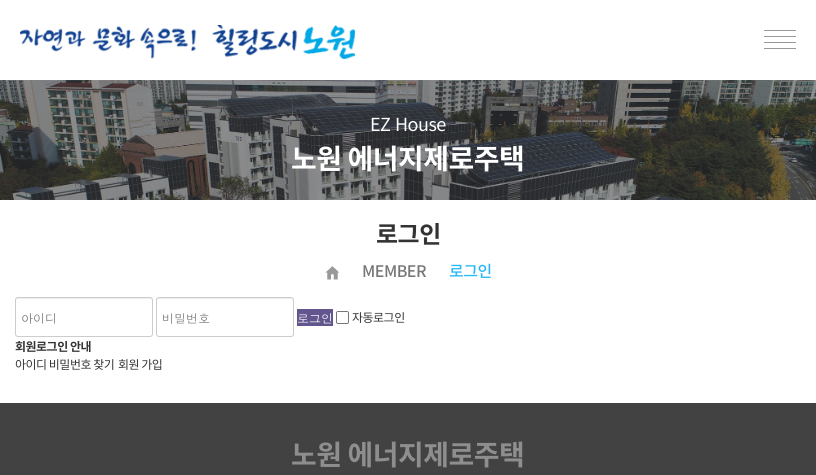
#include <cairo/cairo.h>
#include <math.h>
#include <stddef.h>

static cairo_t *cr;

static void use_color(int r, int g, int b) {
  cairo_set_source_rgb(cr, r / 255.0, g / 255.0, b / 255.0);
}

static void text(double x, double y, const char *s, const char *family, double size, int italic, int bold, int r, int g, int b) {
  cairo_select_font_face(cr, family, italic ? CAIRO_FONT_SLANT_ITALIC : CAIRO_FONT_SLANT_NORMAL,
    bold ? CAIRO_FONT_WEIGHT_BOLD : CAIRO_FONT_WEIGHT_NORMAL);
  cairo_set_font_size(cr, size);
  use_color(r, g, b);
  cairo_move_to(cr, x, y);
  cairo_show_text(cr, s);
}

static void spaced_text(double x, double y, const char *s, double letter, double word) {
  cairo_move_to(cr, x, y);
  while (*s) {
    char ch[5] = {0};
    int n = 0;
    do ch[n++] = *s++; while ((*s & 0xC0) == 0x80);
    cairo_show_text(cr, ch);
    cairo_rel_move_to(cr, letter + word * (*ch == ' '), 0);
  }
}

static void box(double x, double y, double w, double h, int r, int g, int b) {
  use_color(r, g, b);
  cairo_rectangle(cr, x, y, w, h);
  cairo_fill(cr);
}

static void round_rect(double x, double y, double w, double h, double r) {
  cairo_new_sub_path(cr);
  cairo_arc(cr, x + w - r, y + h - r, r, 0, M_PI / 2);
  cairo_arc(cr, x + r, y + h - r, r, M_PI / 2, M_PI);
  cairo_arc(cr, x + r, y + r, r, M_PI, 1.5 * M_PI);
  cairo_arc(cr, x + w - r, y + r, r, 1.5 * M_PI, 2 * M_PI);
  cairo_close_path(cr);
}

static void picture(const char *path, double x, double y, double w, double h) {
  cairo_surface_t *image = cairo_image_surface_create_from_png(path);
  cairo_save(cr);
  cairo_set_source_surface(cr, image, x, y);
  cairo_rectangle(cr, x, y, w, h);
  cairo_fill(cr);
  cairo_restore(cr);
  cairo_surface_destroy(image);
}

static void draw(void) {
  use_color(255, 255, 255);
  cairo_paint(cr);
  picture("img_01.png", 20, 25, 335, 34);
  box(764, 30, 32, 1, 153, 153, 153);
  box(764, 36, 32, 1, 153, 153, 153);
  box(764, 42, 32, 1, 153, 153, 153);
  box(764, 48, 32, 1, 153, 153, 153);
  picture("img_02.png", 0, 80, 816, 120);
  picture("img_03.png", 325, 266, 14, 14);
  use_color(236, 236, 236);
  cairo_new_path(cr);
  cairo_move_to(cr, 18, 299);
  cairo_line_to(cr, 150, 299);
  cairo_curve_to(cr, 151, 299, 152, 300, 152, 301);
  cairo_curve_to(cr, 152, 300, 152, 298, 150, 298);
  cairo_line_to(cr, 18, 298);
  cairo_curve_to(cr, 16, 298, 16, 300, 16, 301);
  cairo_curve_to(cr, 16, 300, 17, 299, 18, 299);
  cairo_close_path(cr);
  cairo_fill(cr);
  round_rect(15.5, 297.5, 137, 39, 2.5);
  use_color(204, 204, 204);
  cairo_set_line_width(cr, 1);
  cairo_stroke(cr);
  use_color(236, 236, 236);
  cairo_new_path(cr);
  cairo_move_to(cr, 159, 299);
  cairo_line_to(cr, 291, 299);
  cairo_curve_to(cr, 292, 299, 293, 300, 293, 301);
  cairo_curve_to(cr, 293, 300, 293, 298, 291, 298);
  cairo_line_to(cr, 159, 298);
  cairo_curve_to(cr, 157, 298, 157, 300, 157, 301);
  cairo_curve_to(cr, 157, 300, 158, 299, 159, 299);
  cairo_close_path(cr);
  cairo_fill(cr);
  round_rect(156.5, 297.5, 137, 39, 2.5);
  use_color(204, 204, 204);
  cairo_stroke(cr);
  box(297, 309, 36, 17, 99, 85, 141);
  round_rect(336.5, 311.5, 12, 12, 1.5);
  use_color(118, 118, 118);
  cairo_stroke(cr);
  box(0, 403, 816, 72, 66, 66, 66);
  cairo_select_font_face(cr, "Noto Sans KR", CAIRO_FONT_SLANT_NORMAL, CAIRO_FONT_WEIGHT_NORMAL);
  cairo_set_font_size(cr, 18);
  use_color(255, 255, 255);
  spaced_text(370, 131, "EZ House", -0.5, 1);
  cairo_select_font_face(cr, "Noto Sans KR", CAIRO_FONT_SLANT_NORMAL, CAIRO_FONT_WEIGHT_BOLD);
  cairo_set_font_size(cr, 28);
  spaced_text(291, 169, "노원 에너지제로주택", -0.5, 0);
  cairo_set_font_size(cr, 24);
  use_color(51, 51, 51);
  spaced_text(376, 243, "로그인", -0.5, 0);
  cairo_select_font_face(cr, "Noto Sans KR Medium", CAIRO_FONT_SLANT_NORMAL, CAIRO_FONT_WEIGHT_NORMAL);
  cairo_set_font_size(cr, 16);
  use_color(119, 119, 119);
  spaced_text(362, 277, "MEMBER", -0.5, 0);
  use_color(37, 185, 247);
  spaced_text(449, 277, "로그인", -0.5, 0);
  text(21, 323, "아이디", "Dotum", 12, 0, 0, 119, 119, 119);
  text(162, 323, "비밀번호", "Dotum", 12, 0, 0, 119, 119, 119);
  text(297, 323, "로그인", "Dotum", 12, 0, 0, 255, 255, 255);
  cairo_select_font_face(cr, "Noto Sans KR", CAIRO_FONT_SLANT_NORMAL, CAIRO_FONT_WEIGHT_NORMAL);
  use_color(51, 51, 51);
  spaced_text(352, 322, "자동로그인", -0.5, 0);
  cairo_select_font_face(cr, "Noto Sans KR", CAIRO_FONT_SLANT_NORMAL, CAIRO_FONT_WEIGHT_BOLD);
  spaced_text(15, 351, "회원로그인 안내", -0.5, 0);
  cairo_select_font_face(cr, "Noto Sans KR", CAIRO_FONT_SLANT_NORMAL, CAIRO_FONT_WEIGHT_NORMAL);
  spaced_text(15, 369, "아이디 비밀번호 찾기", -0.5, 0);
  spaced_text(118, 369, "회원 가입", -0.5, 0);
  cairo_select_font_face(cr, "Noto Sans KR", CAIRO_FONT_SLANT_NORMAL, CAIRO_FONT_WEIGHT_BOLD);
  cairo_set_font_size(cr, 28);
  use_color(142, 142, 142);
  spaced_text(291, 465, "노원 에너지제로주택", -0.5, 0);
}

int main(void) {
  cairo_surface_t *surface = cairo_image_surface_create(CAIRO_FORMAT_RGB24, 816, 475);
  cr = cairo_create(surface);
  cairo_font_options_t *options = cairo_font_options_create();
  cairo_font_options_set_hint_metrics(options, CAIRO_HINT_METRICS_OFF);
  cairo_font_options_set_hint_style(options, CAIRO_HINT_STYLE_NONE);
  cairo_set_font_options(cr, options);
  cairo_set_miter_limit(cr, 4);
  draw();
  cairo_surface_write_to_png(surface, "out.png");
  cairo_font_options_destroy(options);
  cairo_destroy(cr);
  cairo_surface_destroy(surface);
  return 0;
}
